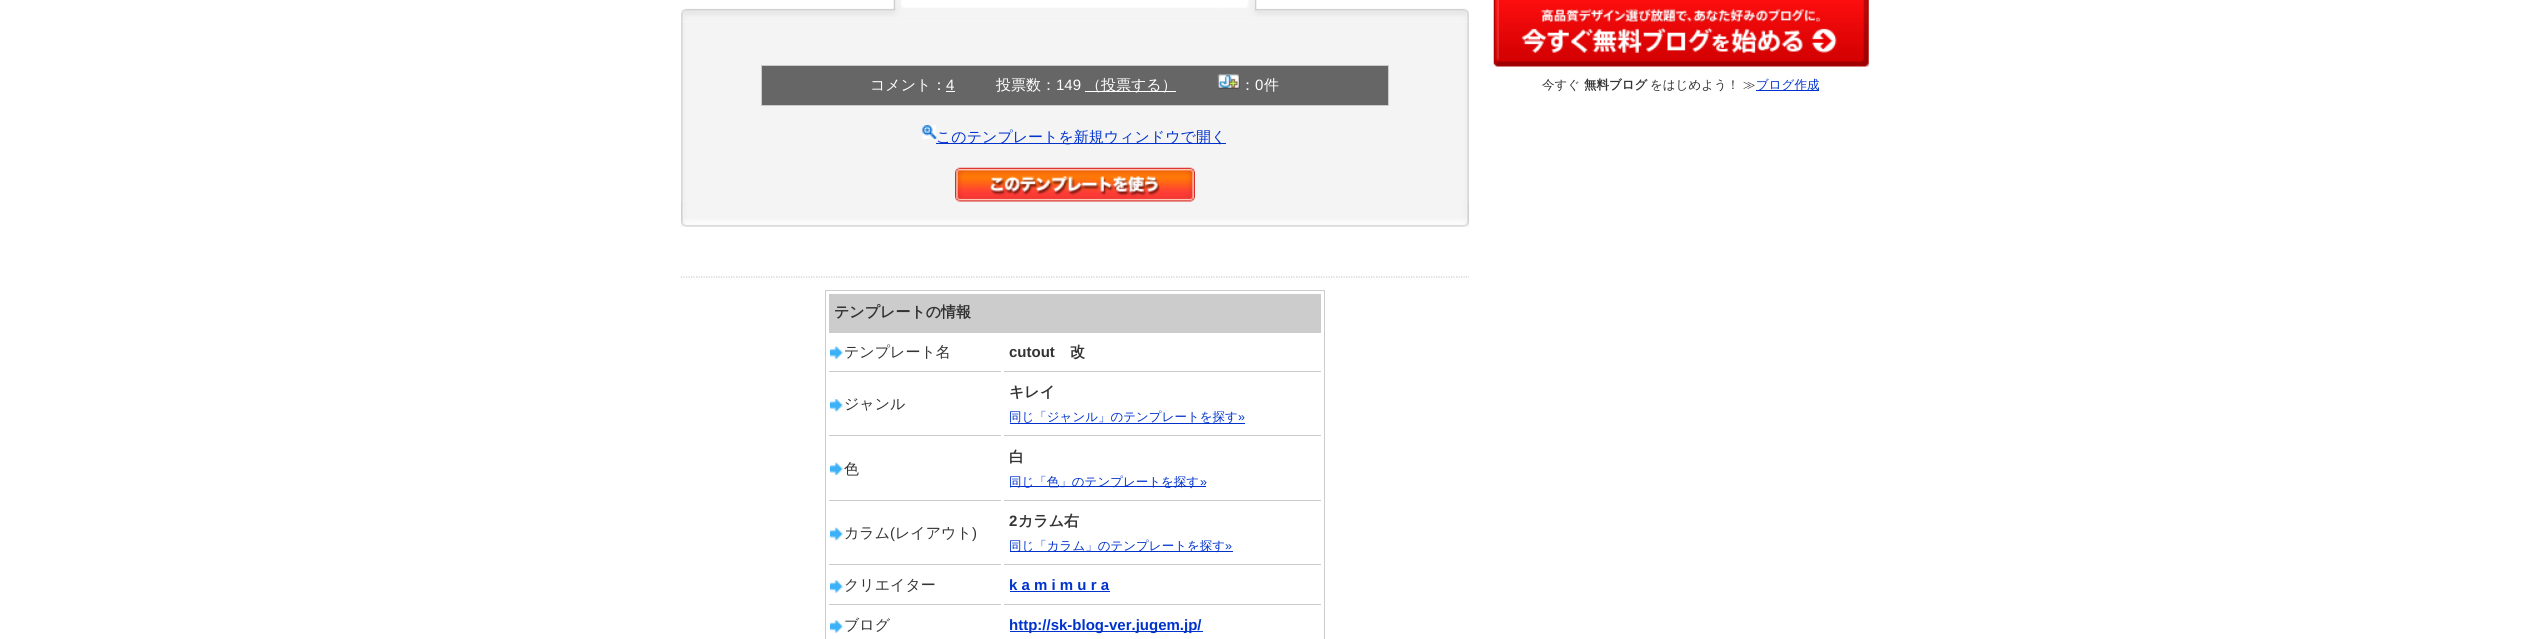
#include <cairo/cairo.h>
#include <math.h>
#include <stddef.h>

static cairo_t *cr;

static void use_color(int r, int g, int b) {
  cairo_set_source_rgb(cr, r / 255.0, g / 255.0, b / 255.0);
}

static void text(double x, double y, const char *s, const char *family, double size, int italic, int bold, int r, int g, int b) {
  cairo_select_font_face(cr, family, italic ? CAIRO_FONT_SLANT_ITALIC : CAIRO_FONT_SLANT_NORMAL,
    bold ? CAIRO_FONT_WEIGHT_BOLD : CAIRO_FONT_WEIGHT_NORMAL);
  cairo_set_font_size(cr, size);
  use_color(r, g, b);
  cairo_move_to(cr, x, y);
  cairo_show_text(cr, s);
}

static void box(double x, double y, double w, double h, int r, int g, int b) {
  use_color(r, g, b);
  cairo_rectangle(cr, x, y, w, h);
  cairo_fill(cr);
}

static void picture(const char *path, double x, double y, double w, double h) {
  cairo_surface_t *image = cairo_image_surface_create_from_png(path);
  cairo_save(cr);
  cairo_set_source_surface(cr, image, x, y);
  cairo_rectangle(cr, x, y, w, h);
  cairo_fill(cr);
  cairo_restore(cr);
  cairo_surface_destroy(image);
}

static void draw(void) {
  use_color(255, 255, 255);
  cairo_paint(cr);
  picture("img_01.png", 681, 0, 788, 22);
  picture("img_02.png", 681, 21, 788, 206);
  picture("img_03.png", 681, 201, 788, 26);
  use_color(102, 102, 102);
  cairo_rectangle(cr, 761.5, 65.5, 627, 40);
  cairo_fill_preserve(cr);
  use_color(204, 204, 204);
  cairo_set_line_width(cr, 1);
  cairo_stroke(cr);
  box(946, 91, 9, 1, 255, 255, 255);
  box(1085, 91, 91, 1, 255, 255, 255);
  picture("img_04.png", 1217, 74, 23, 15);
  picture("img_05.png", 922, 125, 15, 14);
  box(936, 143, 290, 1, 0, 51, 204);
  picture("img_06.png", 955, 167, 240, 35);
  cairo_new_path(cr);
  cairo_move_to(cr, 681, 277);
  cairo_line_to(cr, 1469, 277);
  use_color(204, 204, 204);
  cairo_set_line_width(cr, 1.2);
  cairo_set_dash(cr, (double[]){1.25, 1.25}, 2, 0);
  cairo_stroke(cr);
  cairo_rectangle(cr, 825.5, 290.5, 499, 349);
  cairo_set_line_width(cr, 1);
  cairo_set_dash(cr, NULL, 0, 0);
  cairo_stroke(cr);
  box(829, 294, 492, 39, 204, 204, 204);
  picture("img_07.png", 830, 346, 13, 13);
  box(829, 371, 172, 1, 204, 204, 204);
  box(1004, 371, 317, 1, 204, 204, 204);
  picture("img_08.png", 830, 399, 13, 13);
  box(829, 435, 172, 1, 204, 204, 204);
  box(1004, 435, 317, 1, 204, 204, 204);
  box(1010, 423, 235, 1, 0, 51, 204);
  picture("img_09.png", 830, 462, 13, 14);
  box(829, 500, 172, 1, 204, 204, 204);
  box(1004, 500, 317, 1, 204, 204, 204);
  box(1010, 486, 196, 1, 0, 51, 204);
  picture("img_09.png", 830, 527, 13, 14);
  box(829, 564, 172, 1, 204, 204, 204);
  box(1004, 564, 317, 1, 204, 204, 204);
  box(1010, 551, 223, 1, 0, 51, 204);
  picture("img_10.png", 830, 580, 13, 13);
  box(829, 604, 172, 1, 204, 204, 204);
  box(1004, 604, 317, 1, 204, 204, 204);
  box(1010, 591, 100, 1, 0, 51, 204);
  picture("img_11.png", 830, 620, 13, 13);
  box(1010, 631, 193, 1, 0, 51, 204);
  picture("img_12.png", 1493, 0, 376, 67);
  box(1756, 90, 63, 1, 0, 51, 204);
  text(870, 90, "コメント：", "WenQuanYi Zen Hei Medium", 15, 0, 0, 255, 255, 255);
  text(946, 90, "4", "Liberation Sans", 15, 0, 0, 255, 255, 255);
  text(996, 90, "投票数：", "WenQuanYi Zen Hei Medium", 15, 0, 0, 255, 255, 255);
  text(1056, 90, "149", "Liberation Sans", 15, 0, 0, 255, 255, 255);
  text(1086, 90, "（投票する）", "WenQuanYi Zen Hei Medium", 15, 0, 0, 255, 255, 255);
  text(1240, 90, "：", "WenQuanYi Zen Hei Medium", 15, 0, 0, 255, 255, 255);
  text(1255, 90, "0", "Liberation Sans", 15, 0, 0, 255, 255, 255);
  text(1264, 90, "件", "WenQuanYi Zen Hei Medium", 15, 0, 0, 255, 255, 255);
  text(936, 142, "このテンプレートを新規ウィンドウで開く", "WenQuanYi Zen Hei Medium", 15, 0, 0, 0, 51, 204);
  text(834, 317, "テンプレートの情報", "WenQuanYi Zen Hei", 15, 0, 1, 51, 51, 51);
  text(844, 357, "テンプレート名", "WenQuanYi Zen Hei Medium", 15, 0, 0, 51, 51, 51);
  text(1009, 357, "cutout", "Liberation Sans", 15, 0, 1, 51, 51, 51);
  text(1070, 357, "改", "WenQuanYi Zen Hei", 15, 0, 1, 51, 51, 51);
  text(844, 409, "ジャンル", "WenQuanYi Zen Hei Medium", 15, 0, 0, 51, 51, 51);
  text(1009, 397, "キレイ", "WenQuanYi Zen Hei", 15, 0, 1, 51, 51, 51);
  text(1009, 421, "同じ「ジャンル」のテンプレートを探す", "WenQuanYi Zen Hei Medium", 12.5, 0, 0, 0, 51, 204);
  text(1238, 421, "»", "Liberation Sans", 12.5, 0, 0, 0, 51, 204);
  text(844, 474, "色", "WenQuanYi Zen Hei Medium", 15, 0, 0, 51, 51, 51);
  text(1009, 462, "白", "WenQuanYi Zen Hei", 15, 0, 1, 51, 51, 51);
  text(1009, 486, "同じ「色」のテンプレートを探す", "WenQuanYi Zen Hei Medium", 12.5, 0, 0, 0, 51, 204);
  text(1200, 486, "»", "Liberation Sans", 12.5, 0, 0, 0, 51, 204);
  text(844, 538, "カラム", "WenQuanYi Zen Hei Medium", 15, 0, 0, 51, 51, 51);
  text(890, 538, "(", "Liberation Sans", 15, 0, 0, 51, 51, 51);
  text(895, 538, "レイアウト", "WenQuanYi Zen Hei Medium", 15, 0, 0, 51, 51, 51);
  text(972, 538, ")", "Liberation Sans", 15, 0, 0, 51, 51, 51);
  text(1009, 526, "2", "Liberation Sans", 15, 0, 1, 51, 51, 51);
  text(1018, 526, "カラム右", "WenQuanYi Zen Hei", 15, 0, 1, 51, 51, 51);
  text(1009, 550, "同じ「カラム」のテンプレートを探す", "WenQuanYi Zen Hei Medium", 12.5, 0, 0, 0, 51, 204);
  text(1225, 550, "»", "Liberation Sans", 12.5, 0, 0, 0, 51, 204);
  text(844, 590, "クリエイター", "WenQuanYi Zen Hei Medium", 15, 0, 0, 51, 51, 51);
  text(1009, 590, "k a m i m u r a", "Liberation Sans", 15, 0, 1, 0, 51, 204);
  text(844, 630, "ブログ", "WenQuanYi Zen Hei Medium", 15, 0, 0, 51, 51, 51);
  text(1009, 630, "http://sk-blog-ver.jugem.jp/", "Liberation Sans", 15, 0, 1, 0, 51, 204);
  text(1542, 89, "今すぐ", "WenQuanYi Zen Hei Medium", 12.5, 0, 0, 51, 51, 51);
  text(1584, 89, "無料ブログ", "WenQuanYi Zen Hei", 12.5, 0, 1, 51, 51, 51);
  text(1650, 89, "をはじめよう！ ≫", "WenQuanYi Zen Hei Medium", 12.5, 0, 0, 51, 51, 51);
  text(1756, 89, "ブログ作成", "WenQuanYi Zen Hei Medium", 12.5, 0, 0, 0, 51, 204);
}

int main(void) {
  cairo_surface_t *surface = cairo_image_surface_create(CAIRO_FORMAT_RGB24, 2548, 639);
  cr = cairo_create(surface);
  cairo_font_options_t *options = cairo_font_options_create();
  cairo_font_options_set_hint_metrics(options, CAIRO_HINT_METRICS_OFF);
  cairo_font_options_set_hint_style(options, CAIRO_HINT_STYLE_NONE);
  cairo_set_font_options(cr, options);
  cairo_set_miter_limit(cr, 4);
  draw();
  cairo_surface_write_to_png(surface, "out.png");
  cairo_font_options_destroy(options);
  cairo_destroy(cr);
  cairo_surface_destroy(surface);
  return 0;
}
